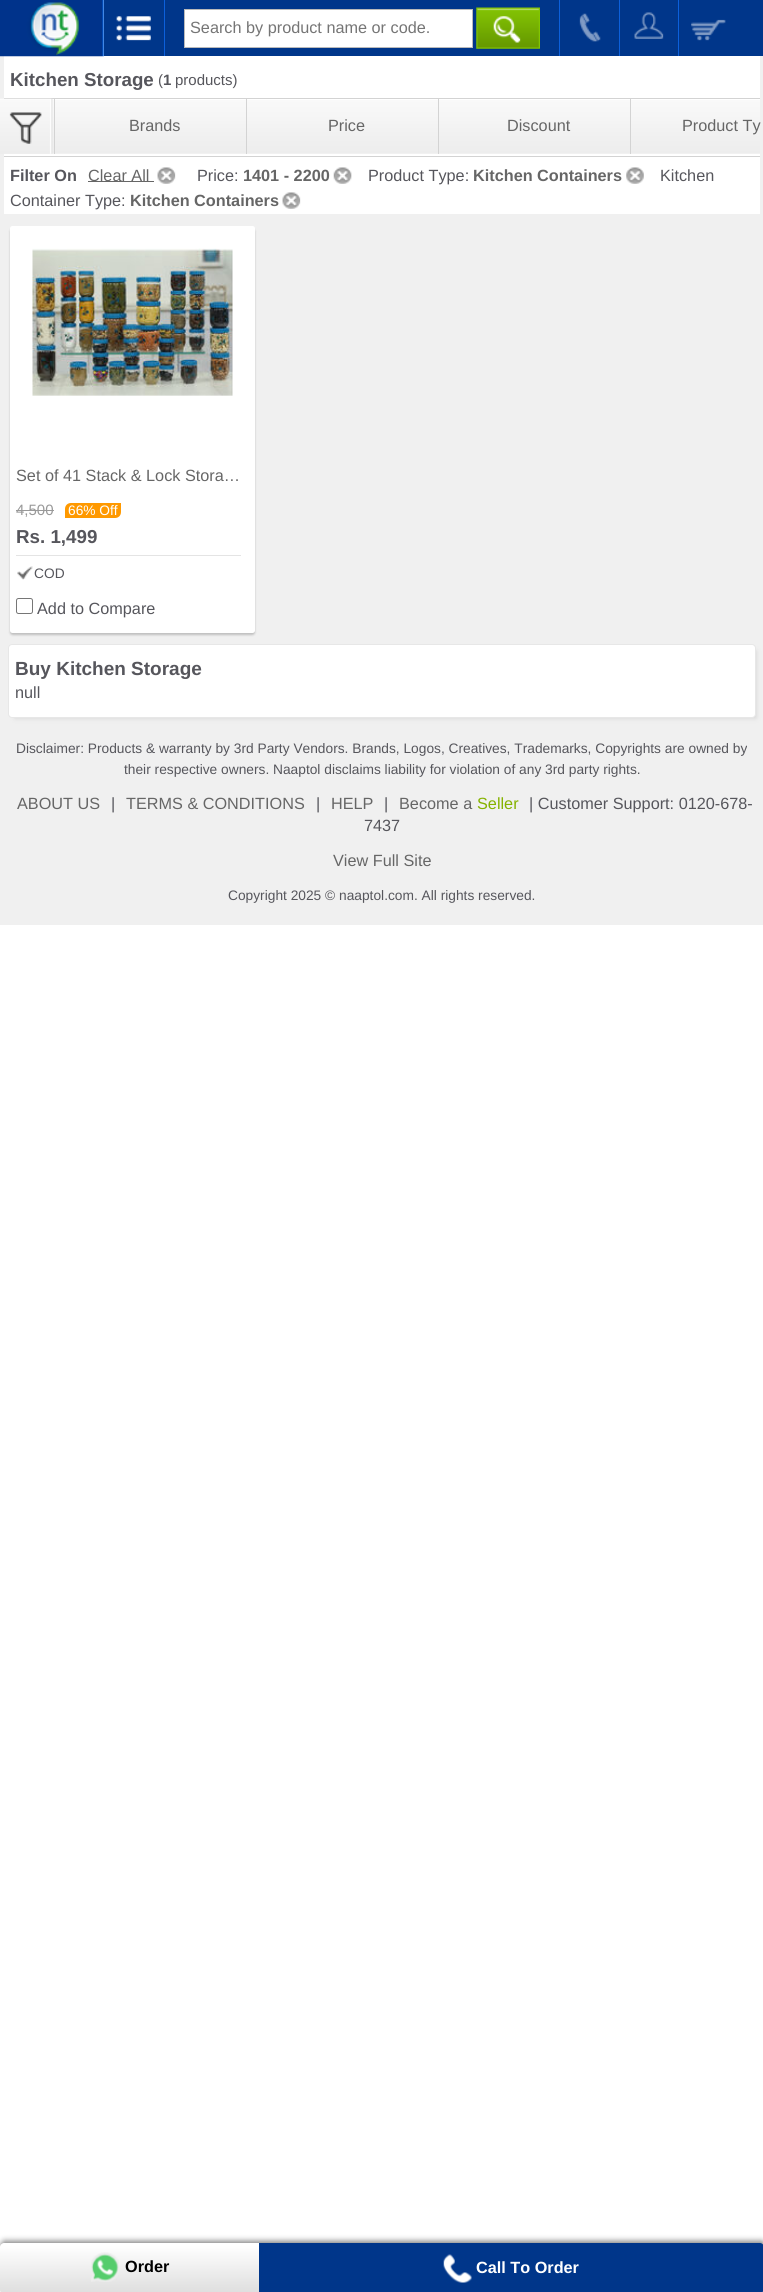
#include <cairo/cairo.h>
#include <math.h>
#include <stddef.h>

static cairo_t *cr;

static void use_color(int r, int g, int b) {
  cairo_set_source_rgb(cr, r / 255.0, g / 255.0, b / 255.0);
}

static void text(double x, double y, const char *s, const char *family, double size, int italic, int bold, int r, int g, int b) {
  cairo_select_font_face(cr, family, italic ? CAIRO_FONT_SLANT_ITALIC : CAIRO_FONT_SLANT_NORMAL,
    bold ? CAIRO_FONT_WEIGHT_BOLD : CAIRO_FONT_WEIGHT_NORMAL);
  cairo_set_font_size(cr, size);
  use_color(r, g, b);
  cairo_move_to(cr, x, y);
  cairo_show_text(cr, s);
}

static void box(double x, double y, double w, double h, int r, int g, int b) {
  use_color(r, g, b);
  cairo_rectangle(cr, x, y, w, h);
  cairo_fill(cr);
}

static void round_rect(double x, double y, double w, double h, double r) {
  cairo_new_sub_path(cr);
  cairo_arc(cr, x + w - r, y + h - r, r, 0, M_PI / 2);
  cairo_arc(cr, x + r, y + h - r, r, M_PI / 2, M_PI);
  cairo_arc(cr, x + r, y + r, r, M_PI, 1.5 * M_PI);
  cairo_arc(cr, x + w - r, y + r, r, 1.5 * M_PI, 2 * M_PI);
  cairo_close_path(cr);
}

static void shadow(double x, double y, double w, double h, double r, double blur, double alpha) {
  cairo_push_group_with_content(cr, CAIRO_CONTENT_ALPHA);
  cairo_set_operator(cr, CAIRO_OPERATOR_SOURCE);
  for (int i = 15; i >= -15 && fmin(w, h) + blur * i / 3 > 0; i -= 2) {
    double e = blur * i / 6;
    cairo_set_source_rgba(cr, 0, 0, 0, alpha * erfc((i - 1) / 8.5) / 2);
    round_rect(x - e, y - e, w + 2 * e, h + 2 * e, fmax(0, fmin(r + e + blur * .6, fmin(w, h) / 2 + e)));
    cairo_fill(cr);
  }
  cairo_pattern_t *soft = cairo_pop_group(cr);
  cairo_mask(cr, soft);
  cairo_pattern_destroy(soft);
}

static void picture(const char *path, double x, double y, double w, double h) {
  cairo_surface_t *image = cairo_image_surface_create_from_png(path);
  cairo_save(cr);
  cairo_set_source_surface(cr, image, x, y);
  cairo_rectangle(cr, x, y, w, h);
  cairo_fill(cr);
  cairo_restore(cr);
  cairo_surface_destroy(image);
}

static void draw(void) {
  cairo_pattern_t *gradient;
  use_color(255, 255, 255);
  cairo_paint(cr);
  box(0, 56, 763, 869, 240, 240, 240);
  box(4, 56, 756, 158, 255, 255, 255);
  picture("img_01.png", 0, 0, 104, 57);
  box(104, 0, 659, 56, 0, 54, 138);
  picture("img_02.png", 116, 16, 35, 25);
  box(164, 0, 1, 56, 12, 96, 219);
  use_color(255, 255, 255);
  cairo_rectangle(cr, 184.5, 9.5, 288, 38);
  cairo_fill_preserve(cr);
  use_color(186, 186, 186);
  cairo_set_line_width(cr, 1);
  cairo_stroke(cr);
  picture("img_03.png", 476, 7, 64, 42);
  box(559, 0, 1, 56, 12, 96, 219);
  picture("img_04.png", 579, 13, 22, 29);
  box(619, 0, 1, 56, 12, 96, 219);
  picture("img_05.png", 634, 12, 30, 27);
  box(678, 0, 1, 56, 12, 96, 219);
  picture("img_06.png", 691, 19, 35, 22);
  picture("img_07.png", 4, 100, 756, 54);
  box(4, 98, 756, 1, 211, 211, 211);
  box(4, 156, 756, 1, 211, 211, 211);
  picture("img_08.png", 0, 98, 53, 56);
  box(54, 99, 1, 55, 211, 211, 211);
  box(246, 99, 1, 55, 211, 211, 211);
  box(438, 99, 1, 55, 211, 211, 211);
  box(630, 99, 1, 55, 211, 211, 211);
  box(88, 181, 66, 1, 102, 102, 102);
  picture("img_09.png", 157, 167, 19, 17);
  picture("img_10.png", 333, 167, 19, 17);
  picture("img_11.png", 626, 167, 18, 17);
  picture("img_09.png", 282, 192, 19, 17);
  use_color(0, 0, 0);
  shadow(10, 229, 245, 406, 2.5, 1, 0.2);
  use_color(255, 255, 255);
  round_rect(10, 226, 245, 407, 2.5);
  cairo_fill(cr);
  picture("img_12.png", 32, 248, 201, 148);
  box(16, 510, 38, 1, 153, 153, 153);
  use_color(255, 153, 0);
  cairo_new_path(cr);
  cairo_move_to(cr, 71, 503);
  cairo_line_to(cr, 121, 503);
  cairo_line_to(cr, 121, 512);
  cairo_curve_to(cr, 121, 515.5, 118.5, 518, 115, 518);
  cairo_line_to(cr, 65, 518);
  cairo_line_to(cr, 65, 509);
  cairo_curve_to(cr, 65, 505.5, 67.5, 503, 71, 503);
  cairo_close_path(cr);
  cairo_fill(cr);
  box(16, 555, 225, 1, 228, 228, 228);
  picture("img_13.png", 17, 566, 16, 14);
  round_rect(16.5, 598.5, 16, 15, 2);
  use_color(118, 118, 118);
  cairo_stroke(cr);
  use_color(211, 211, 211);
  shadow(15, 651, 741, 67, 0, 2.5, 1);
  use_color(255, 255, 255);
  round_rect(8.5, 644.5, 747, 73, 3.5);
  cairo_fill_preserve(cr);
  use_color(231, 231, 231);
  cairo_stroke(cr);
  use_color(128, 128, 128);
  shadow(1, 2241, 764, 50, 4, 3, 1);
  gradient = cairo_pattern_create_linear(129, 2243, 129, 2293);
  cairo_pattern_add_color_stop_rgba(gradient, 0.05, 1, 1, 1, 1);
  cairo_pattern_add_color_stop_rgba(gradient, 1, 0.871, 0.871, 0.871, 1);
  cairo_set_source(cr, gradient);
  cairo_pattern_destroy(gradient);
  cairo_new_path(cr);
  cairo_move_to(cr, 4, 2243);
  cairo_line_to(cr, 259, 2243);
  cairo_line_to(cr, 259, 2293);
  cairo_line_to(cr, 4, 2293);
  cairo_curve_to(cr, 2, 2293, 0, 2291, 0, 2289);
  cairo_line_to(cr, 0, 2247);
  cairo_curve_to(cr, 0, 2245, 2, 2243, 4, 2243);
  cairo_close_path(cr);
  cairo_fill(cr);
  picture("img_14.png", 91, 2252, 28, 30);
  use_color(0, 54, 138);
  cairo_new_path(cr);
  cairo_move_to(cr, 259, 2243);
  cairo_line_to(cr, 760, 2243);
  cairo_curve_to(cr, 762, 2243, 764, 2245, 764, 2247);
  cairo_line_to(cr, 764, 2289);
  cairo_curve_to(cr, 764, 2291, 762, 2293, 760, 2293);
  cairo_line_to(cr, 259, 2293);
  cairo_close_path(cr);
  cairo_fill(cr);
  picture("img_15.png", 443, 2254, 29, 29);
  text(190, 33, "Search by product name or code.", "Liberation Sans", 16.25, 0, 0, 117, 117, 117);
  text(10, 86, "Kitchen Storage", "Liberation Sans", 18.75, 0, 1, 86, 86, 92);
  text(158, 85, "(", "Liberation Sans", 15, 0, 0, 86, 86, 92);
  text(163, 85, "1", "Liberation Sans", 15, 0, 1, 86, 86, 92);
  text(175, 85, "products)", "Liberation Sans", 15, 0, 0, 86, 86, 92);
  text(129, 131, "Brands", "Liberation Sans", 16.25, 0, 0, 102, 102, 102);
  text(328, 131, "Price", "Liberation Sans", 16.25, 0, 0, 102, 102, 102);
  text(507, 131, "Discount", "Liberation Sans", 16.25, 0, 0, 102, 102, 102);
  text(682, 131, "Product Ty", "Liberation Sans", 16.25, 0, 0, 102, 102, 102);
  text(10, 181, "Filter On", "Liberation Sans", 16.25, 0, 1, 86, 86, 92);
  text(88, 181, "Clear All", "Liberation Sans", 16.25, 0, 0, 102, 102, 102);
  text(197, 181, "Price:", "Liberation Sans", 16.25, 0, 0, 86, 86, 92);
  text(243, 181, "1401 - 2200", "Liberation Sans", 16.25, 0, 1, 102, 102, 102);
  text(368, 181, "Product Type:", "Liberation Sans", 16.25, 0, 0, 86, 86, 92);
  text(473, 181, "Kitchen Containers", "Liberation Sans", 16.25, 0, 1, 102, 102, 102);
  text(660, 181, "Kitchen", "Liberation Sans", 16.25, 0, 0, 86, 86, 92);
  text(10, 206, "Container Type:", "Liberation Sans", 16.25, 0, 0, 86, 86, 92);
  text(130, 206, "Kitchen Containers", "Liberation Sans", 16.25, 0, 1, 102, 102, 102);
  text(16, 481, "Set of 41 Stack & Lock Stora…", "Liberation Sans", 16.25, 0, 0, 102, 102, 102);
  text(16, 515, "4,500", "Liberation Sans", 15, 0, 0, 153, 153, 153);
  text(68, 515, "66% Off", "Liberation Sans", 13.75, 0, 0, 255, 255, 255);
  text(16, 543, "Rs. 1,499", "Liberation Sans", 18.75, 0, 1, 86, 86, 92);
  text(34, 578, "COD", "Liberation Sans", 13.75, 0, 0, 86, 86, 92);
  text(37, 614, "Add to Compare", "Liberation Sans", 16.25, 0, 0, 86, 86, 92);
  text(15, 675, "Buy Kitchen Storage", "Liberation Sans", 19, 0, 1, 86, 86, 92);
  text(15, 698, "null", "Liberation Sans", 16.25, 0, 0, 86, 86, 92);
  text(16, 753, "Disclaimer: Products & warranty by 3rd Party Vendors. Brands, Logos, Creatives, Trademarks, Copyrights are owned by", "Liberation Sans", 13.75, 0, 0, 86, 86, 92);
  text(124, 774, "their respective owners. Naaptol disclaims liability for violation of any 3rd party rights.", "Liberation Sans", 13.75, 0, 0, 86, 86, 92);
  text(17, 809, "ABOUT US", "Liberation Sans", 16.25, 0, 0, 102, 102, 102);
  text(111, 809, "|", "Liberation Sans", 16.25, 0, 0, 86, 86, 92);
  text(126, 809, "TERMS & CONDITIONS", "Liberation Sans", 16.25, 0, 0, 102, 102, 102);
  text(316, 809, "|", "Liberation Sans", 16.25, 0, 0, 86, 86, 92);
  text(331, 809, "HELP", "Liberation Sans", 16.25, 0, 0, 102, 102, 102);
  text(384, 809, "|", "Liberation Sans", 16.25, 0, 0, 86, 86, 92);
  text(399, 809, "Become a", "Liberation Sans", 16.25, 0, 0, 102, 102, 102);
  text(477, 809, "Seller", "Liberation Sans", 16.25, 0, 0, 134, 178, 0);
  text(529, 809, "| Customer Support: 0120-678-", "Liberation Sans", 16.25, 0, 0, 86, 86, 92);
  text(364, 831, "7437", "Liberation Sans", 16.25, 0, 0, 86, 86, 92);
  text(333, 866, "View Full Site", "Liberation Sans", 16.25, 0, 0, 102, 102, 102);
  text(228, 900, "Copyright 2025 © naaptol.com. All rights reserved.", "Liberation Sans", 13.75, 0, 0, 86, 86, 92);
  text(125, 2272, "Order", "Liberation Sans", 16.25, 0, 1, 0, 0, 0);
  text(476, 2273, "Call To Order", "Liberation Sans", 16.25, 0, 1, 255, 255, 255);
}

int main(void) {
  cairo_surface_t *surface = cairo_image_surface_create(CAIRO_FORMAT_RGB24, 763, 2292);
  cr = cairo_create(surface);
  cairo_font_options_t *options = cairo_font_options_create();
  cairo_font_options_set_hint_metrics(options, CAIRO_HINT_METRICS_OFF);
  cairo_font_options_set_hint_style(options, CAIRO_HINT_STYLE_NONE);
  cairo_set_font_options(cr, options);
  cairo_set_miter_limit(cr, 4);
  draw();
  cairo_surface_write_to_png(surface, "out.png");
  cairo_font_options_destroy(options);
  cairo_destroy(cr);
  cairo_surface_destroy(surface);
  return 0;
}
